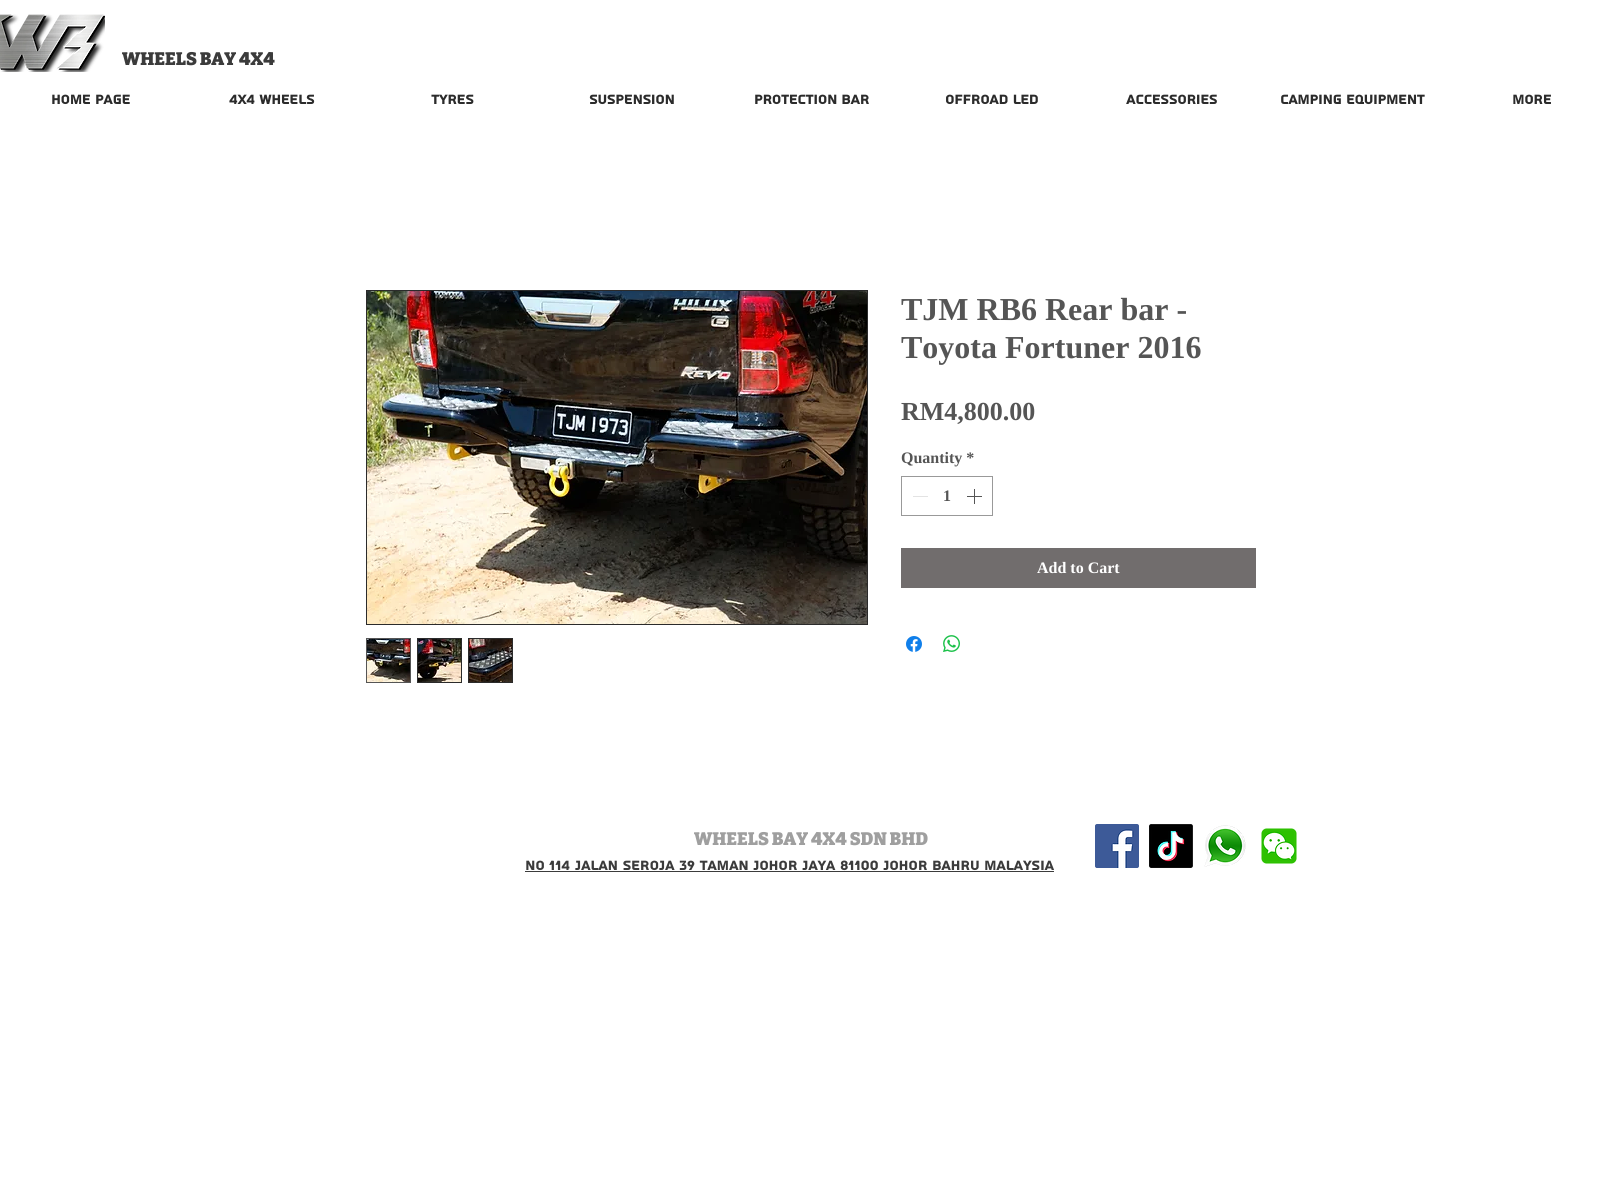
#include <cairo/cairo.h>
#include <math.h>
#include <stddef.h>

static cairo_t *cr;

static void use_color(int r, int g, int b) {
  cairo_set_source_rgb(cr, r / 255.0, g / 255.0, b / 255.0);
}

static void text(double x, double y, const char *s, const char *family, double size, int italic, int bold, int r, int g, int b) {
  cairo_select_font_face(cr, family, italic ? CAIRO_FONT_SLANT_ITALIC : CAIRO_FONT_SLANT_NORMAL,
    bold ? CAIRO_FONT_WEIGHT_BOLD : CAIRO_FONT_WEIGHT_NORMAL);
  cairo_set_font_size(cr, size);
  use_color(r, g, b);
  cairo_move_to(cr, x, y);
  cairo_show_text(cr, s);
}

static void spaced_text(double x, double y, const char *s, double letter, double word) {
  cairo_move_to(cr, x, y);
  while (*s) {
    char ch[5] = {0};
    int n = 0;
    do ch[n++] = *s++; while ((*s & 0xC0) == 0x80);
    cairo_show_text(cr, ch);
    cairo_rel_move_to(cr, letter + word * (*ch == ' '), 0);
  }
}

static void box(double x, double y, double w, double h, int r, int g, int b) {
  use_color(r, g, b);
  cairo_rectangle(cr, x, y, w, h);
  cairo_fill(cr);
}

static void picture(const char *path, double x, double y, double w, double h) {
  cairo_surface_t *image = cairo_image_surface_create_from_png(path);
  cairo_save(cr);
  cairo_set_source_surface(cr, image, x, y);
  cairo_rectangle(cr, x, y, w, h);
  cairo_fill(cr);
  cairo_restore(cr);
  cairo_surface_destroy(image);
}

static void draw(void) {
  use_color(255, 255, 255);
  cairo_paint(cr);
  picture("img_01.png", 0, 14, 105, 58);
  cairo_rectangle(cr, 366.5, 290.5, 501, 334);
  use_color(43, 43, 43);
  cairo_set_line_width(cr, 1);
  cairo_stroke(cr);
  picture("img_02.png", 367, 291, 500, 333);
  cairo_rectangle(cr, 366.5, 638.5, 44, 44);
  use_color(85, 85, 85);
  cairo_stroke(cr);
  picture("img_03.png", 367, 639, 43, 43);
  box(417, 638, 45, 45, 43, 43, 43);
  picture("img_04.png", 418, 639, 43, 43);
  box(468, 638, 45, 45, 43, 43, 43);
  picture("img_05.png", 469, 639, 43, 43);
  cairo_rectangle(cr, 901.5, 476.5, 91, 39);
  use_color(153, 153, 153);
  cairo_stroke(cr);
  box(913, 496, 15, 1, 227, 227, 227);
  picture("img_06.png", 967, 489, 15, 15);
  box(901, 548, 355, 40, 113, 109, 109);
  picture("img_07.png", 906, 636, 16, 16);
  picture("img_08.png", 943, 635, 17, 17);
  picture("img_09.png", 1095, 824, 44, 44);
  picture("img_10.png", 1149, 824, 44, 44);
  picture("img_11.png", 1204, 825, 42, 42);
  picture("img_12.png", 1261, 828, 36, 36);
  box(525, 871, 529, 1, 59, 59, 59);
  text(122, 65, "WHEELS BAY 4X4", "Bitter Black", 18, 0, 0, 59, 59, 59);
  text(51, 104, "Home Page", "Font", 17, 0, 1, 43, 43, 43);
  text(229, 104, "4x4 Wheels", "Font", 17, 0, 1, 43, 43, 43);
  text(431, 104, "Tyres", "Font", 17, 0, 1, 43, 43, 43);
  text(589, 104, "Suspension", "Font", 17, 0, 1, 43, 43, 43);
  text(754, 104, "Protection Bar", "Font", 17, 0, 1, 43, 43, 43);
  text(945, 104, "Offroad LED", "Font", 17, 0, 1, 43, 43, 43);
  text(1126, 104, "Accessories", "Font", 17, 0, 1, 43, 43, 43);
  text(1280, 104, "Camping Equipment", "Font", 17, 0, 1, 43, 43, 43);
  text(1512, 104, "More", "Font", 17, 0, 1, 43, 43, 43);
  text(901, 320, "TJM RB6 Rear bar -", "Liberation Serif", 32, 0, 1, 85, 85, 85);
  text(901, 358, "Toyota Fortuner 2016", "Liberation Serif", 32, 0, 1, 85, 85, 85);
  text(901, 420, "RM4,800.00", "Liberation Serif", 26, 0, 1, 85, 85, 85);
  text(901, 463, "Quantity *", "Liberation Serif", 16, 0, 1, 85, 85, 85);
  text(943, 501, "1", "Liberation Serif", 16, 0, 1, 85, 85, 85);
  text(1037, 573, "Add to Cart", "Liberation Serif", 16, 0, 1, 255, 255, 255);
  text(694, 845, "WHEELS BAY 4X4 SDN BHD", "Bitter Black", 18, 0, 0, 159, 159, 159);
  cairo_select_font_face(cr, "Font", CAIRO_FONT_SLANT_NORMAL, CAIRO_FONT_WEIGHT_BOLD);
  cairo_set_font_size(cr, 17);
  use_color(59, 59, 59);
  spaced_text(525, 870, "no 114 jalan seroja 39 taman johor jaya 81100 johor bahru malaysia", 0.17, 0);
}

int main(void) {
  cairo_surface_t *surface = cairo_image_surface_create(CAIRO_FORMAT_RGB24, 1622, 1193);
  cr = cairo_create(surface);
  cairo_font_options_t *options = cairo_font_options_create();
  cairo_font_options_set_hint_metrics(options, CAIRO_HINT_METRICS_OFF);
  cairo_font_options_set_hint_style(options, CAIRO_HINT_STYLE_NONE);
  cairo_set_font_options(cr, options);
  cairo_set_miter_limit(cr, 4);
  draw();
  cairo_surface_write_to_png(surface, "out.png");
  cairo_font_options_destroy(options);
  cairo_destroy(cr);
  cairo_surface_destroy(surface);
  return 0;
}
